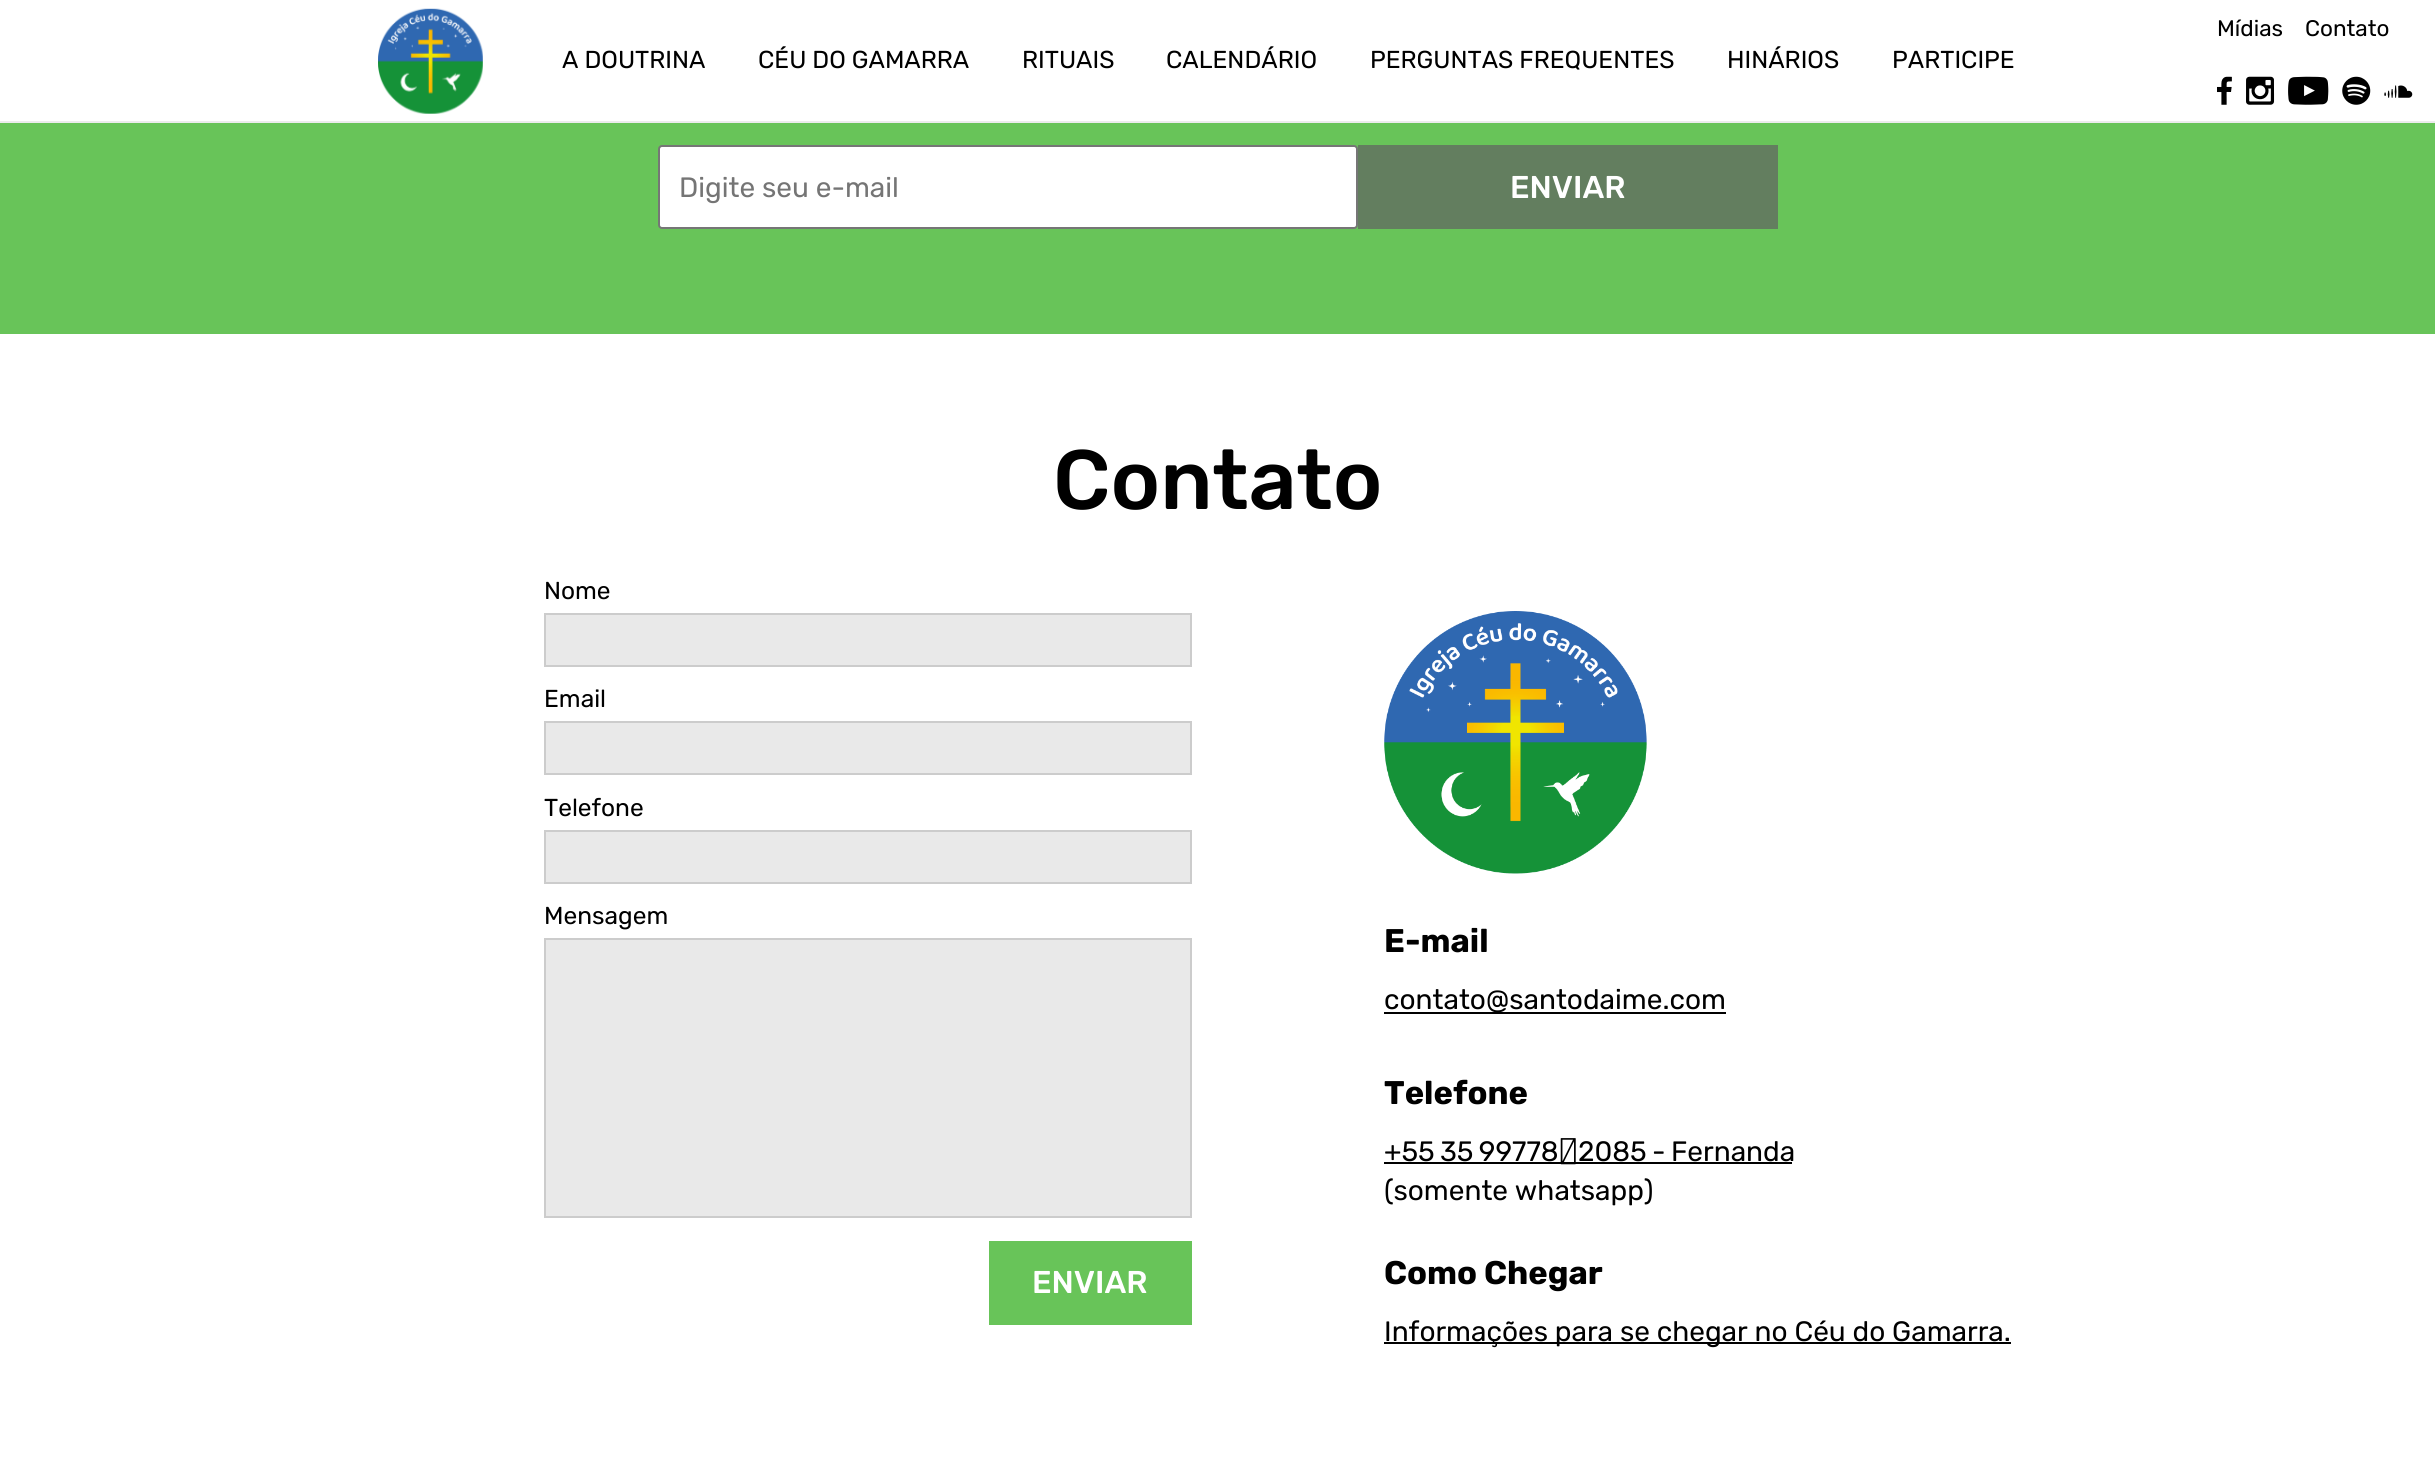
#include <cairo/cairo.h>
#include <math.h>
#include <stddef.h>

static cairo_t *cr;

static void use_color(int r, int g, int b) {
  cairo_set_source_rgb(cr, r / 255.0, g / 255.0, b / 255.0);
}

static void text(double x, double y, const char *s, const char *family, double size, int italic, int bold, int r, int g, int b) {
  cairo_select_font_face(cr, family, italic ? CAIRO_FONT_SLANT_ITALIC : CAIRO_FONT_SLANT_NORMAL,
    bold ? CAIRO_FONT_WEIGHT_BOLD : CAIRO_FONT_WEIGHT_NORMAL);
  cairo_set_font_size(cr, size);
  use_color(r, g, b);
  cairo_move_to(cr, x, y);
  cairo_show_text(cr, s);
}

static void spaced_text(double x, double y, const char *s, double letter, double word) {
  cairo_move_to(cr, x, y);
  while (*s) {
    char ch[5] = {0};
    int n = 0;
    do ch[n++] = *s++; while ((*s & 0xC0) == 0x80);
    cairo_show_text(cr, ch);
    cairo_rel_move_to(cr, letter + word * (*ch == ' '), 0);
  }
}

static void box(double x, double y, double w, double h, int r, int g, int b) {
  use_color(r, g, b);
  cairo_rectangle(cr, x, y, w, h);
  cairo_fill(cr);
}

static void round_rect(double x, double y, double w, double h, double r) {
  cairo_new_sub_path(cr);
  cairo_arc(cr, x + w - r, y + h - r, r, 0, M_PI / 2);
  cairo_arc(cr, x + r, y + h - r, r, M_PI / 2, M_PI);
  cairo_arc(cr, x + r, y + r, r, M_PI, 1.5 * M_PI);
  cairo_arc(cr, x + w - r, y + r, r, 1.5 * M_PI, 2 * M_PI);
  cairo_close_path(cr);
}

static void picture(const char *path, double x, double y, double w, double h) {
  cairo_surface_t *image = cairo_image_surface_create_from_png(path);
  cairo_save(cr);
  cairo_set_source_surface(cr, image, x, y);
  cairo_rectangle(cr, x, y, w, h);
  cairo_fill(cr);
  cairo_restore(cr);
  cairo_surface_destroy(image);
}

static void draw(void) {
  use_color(255, 255, 255);
  cairo_paint(cr);
  box(0, 121, 2435, 2, 236, 236, 236);
  picture("img_01.png", 378, 8, 105, 106);
  box(0, 123, 2435, 211, 104, 196, 89);
  use_color(255, 255, 255);
  round_rect(659, 146, 698, 82, 3);
  cairo_fill_preserve(cr);
  use_color(118, 118, 118);
  cairo_stroke(cr);
  box(1358, 145, 420, 84, 99, 126, 95);
  use_color(233, 233, 233);
  cairo_rectangle(cr, 545, 614, 646, 52);
  cairo_fill_preserve(cr);
  use_color(204, 204, 204);
  cairo_stroke(cr);
  use_color(233, 233, 233);
  cairo_rectangle(cr, 545, 722, 646, 52);
  cairo_fill_preserve(cr);
  use_color(204, 204, 204);
  cairo_stroke(cr);
  use_color(233, 233, 233);
  cairo_rectangle(cr, 545, 831, 646, 52);
  cairo_fill_preserve(cr);
  use_color(204, 204, 204);
  cairo_stroke(cr);
  use_color(233, 233, 233);
  cairo_rectangle(cr, 545, 939, 646, 278);
  cairo_fill_preserve(cr);
  use_color(204, 204, 204);
  cairo_stroke(cr);
  box(989, 1241, 203, 84, 104, 196, 89);
  picture("img_02.png", 1384, 611, 263, 263);
  box(1384, 1012, 342, 2, 0, 0, 0);
  box(1384, 1162, 408, 2, 0, 0, 0);
  box(1384, 1342, 627, 2, 0, 0, 0);
  text(562, 68, "A DOUTRINA", "Rubik", 24.5, 0, 0, 0, 0, 0);
  text(758, 68, "CÉU DO GAMARRA", "Rubik", 24.5, 0, 0, 0, 0, 0);
  text(1022, 68, "RITUAIS", "Rubik", 24.5, 0, 0, 0, 0, 0);
  text(1166, 68, "CALENDÁRIO", "Rubik", 24.5, 0, 0, 0, 0, 0);
  text(1370, 68, "PERGUNTAS FREQUENTES", "Rubik", 24.5, 0, 0, 0, 0, 0);
  text(1727, 68, "HINÁRIOS", "Rubik", 24.5, 0, 0, 0, 0, 0);
  text(1892, 68, "PARTICIPE", "Rubik", 24.5, 0, 0, 0, 0, 0);
  text(2217, 36, "Mídias", "Rubik", 22.5, 0, 0, 0, 0, 0);
  text(2305, 36, "Contato", "Rubik", 22.5, 0, 0, 0, 0, 0);
  text(2217, 103, "f i y s S", "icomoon", 28, 0, 0, 0, 0, 0);
  text(679, 197, "Digite seu e-mail", "Rubik", 28, 0, 0, 117, 117, 117);
  text(1510, 198, "ENVIAR", "Rubik Medium", 31.5, 0, 0, 255, 255, 255);
  text(1053, 509, "Contato", "Rubik Medium", 84, 0, 0, 0, 0, 0);
  text(544, 599, "Nome", "Rubik", 24.5, 0, 0, 0, 0, 0);
  text(544, 707, "Email", "Rubik", 24.5, 0, 0, 0, 0, 0);
  text(544, 816, "Telefone", "Rubik", 24.5, 0, 0, 0, 0, 0);
  text(544, 924, "Mensagem", "Rubik", 24.5, 0, 0, 0, 0, 0);
  text(1032, 1293, "ENVIAR", "Rubik Medium", 31.5, 0, 0, 255, 255, 255);
  text(1384, 952, "E-mail", "Rubik", 32.75, 0, 1, 0, 0, 0);
  text(1384, 1009, "contato@santodaime.com", "Rubik", 28, 0, 0, 0, 0, 0);
  text(1384, 1104, "Telefone", "Rubik", 32.75, 0, 1, 0, 0, 0);
  cairo_select_font_face(cr, "Rubik", CAIRO_FONT_SLANT_NORMAL, CAIRO_FONT_WEIGHT_NORMAL);
  cairo_set_font_size(cr, 28);
  spaced_text(1384, 1161, "+55 35 99778‑2085 - Fernanda", 0, -1.5);
  text(1384, 1200, "(somente whatsapp)", "Rubik", 28, 0, 0, 0, 0, 0);
  text(1384, 1284, "Como Chegar", "Rubik", 32.75, 0, 1, 0, 0, 0);
  text(1384, 1341, "Informações para se chegar no Céu do Gamarra.", "Rubik", 28, 0, 0, 0, 0, 0);
}

int main(void) {
  cairo_surface_t *surface = cairo_image_surface_create(CAIRO_FORMAT_RGB24, 2435, 1470);
  cr = cairo_create(surface);
  cairo_font_options_t *options = cairo_font_options_create();
  cairo_font_options_set_hint_metrics(options, CAIRO_HINT_METRICS_OFF);
  cairo_font_options_set_hint_style(options, CAIRO_HINT_STYLE_NONE);
  cairo_set_font_options(cr, options);
  cairo_set_miter_limit(cr, 4);
  draw();
  cairo_surface_write_to_png(surface, "out.png");
  cairo_font_options_destroy(options);
  cairo_destroy(cr);
  cairo_surface_destroy(surface);
  return 0;
}
